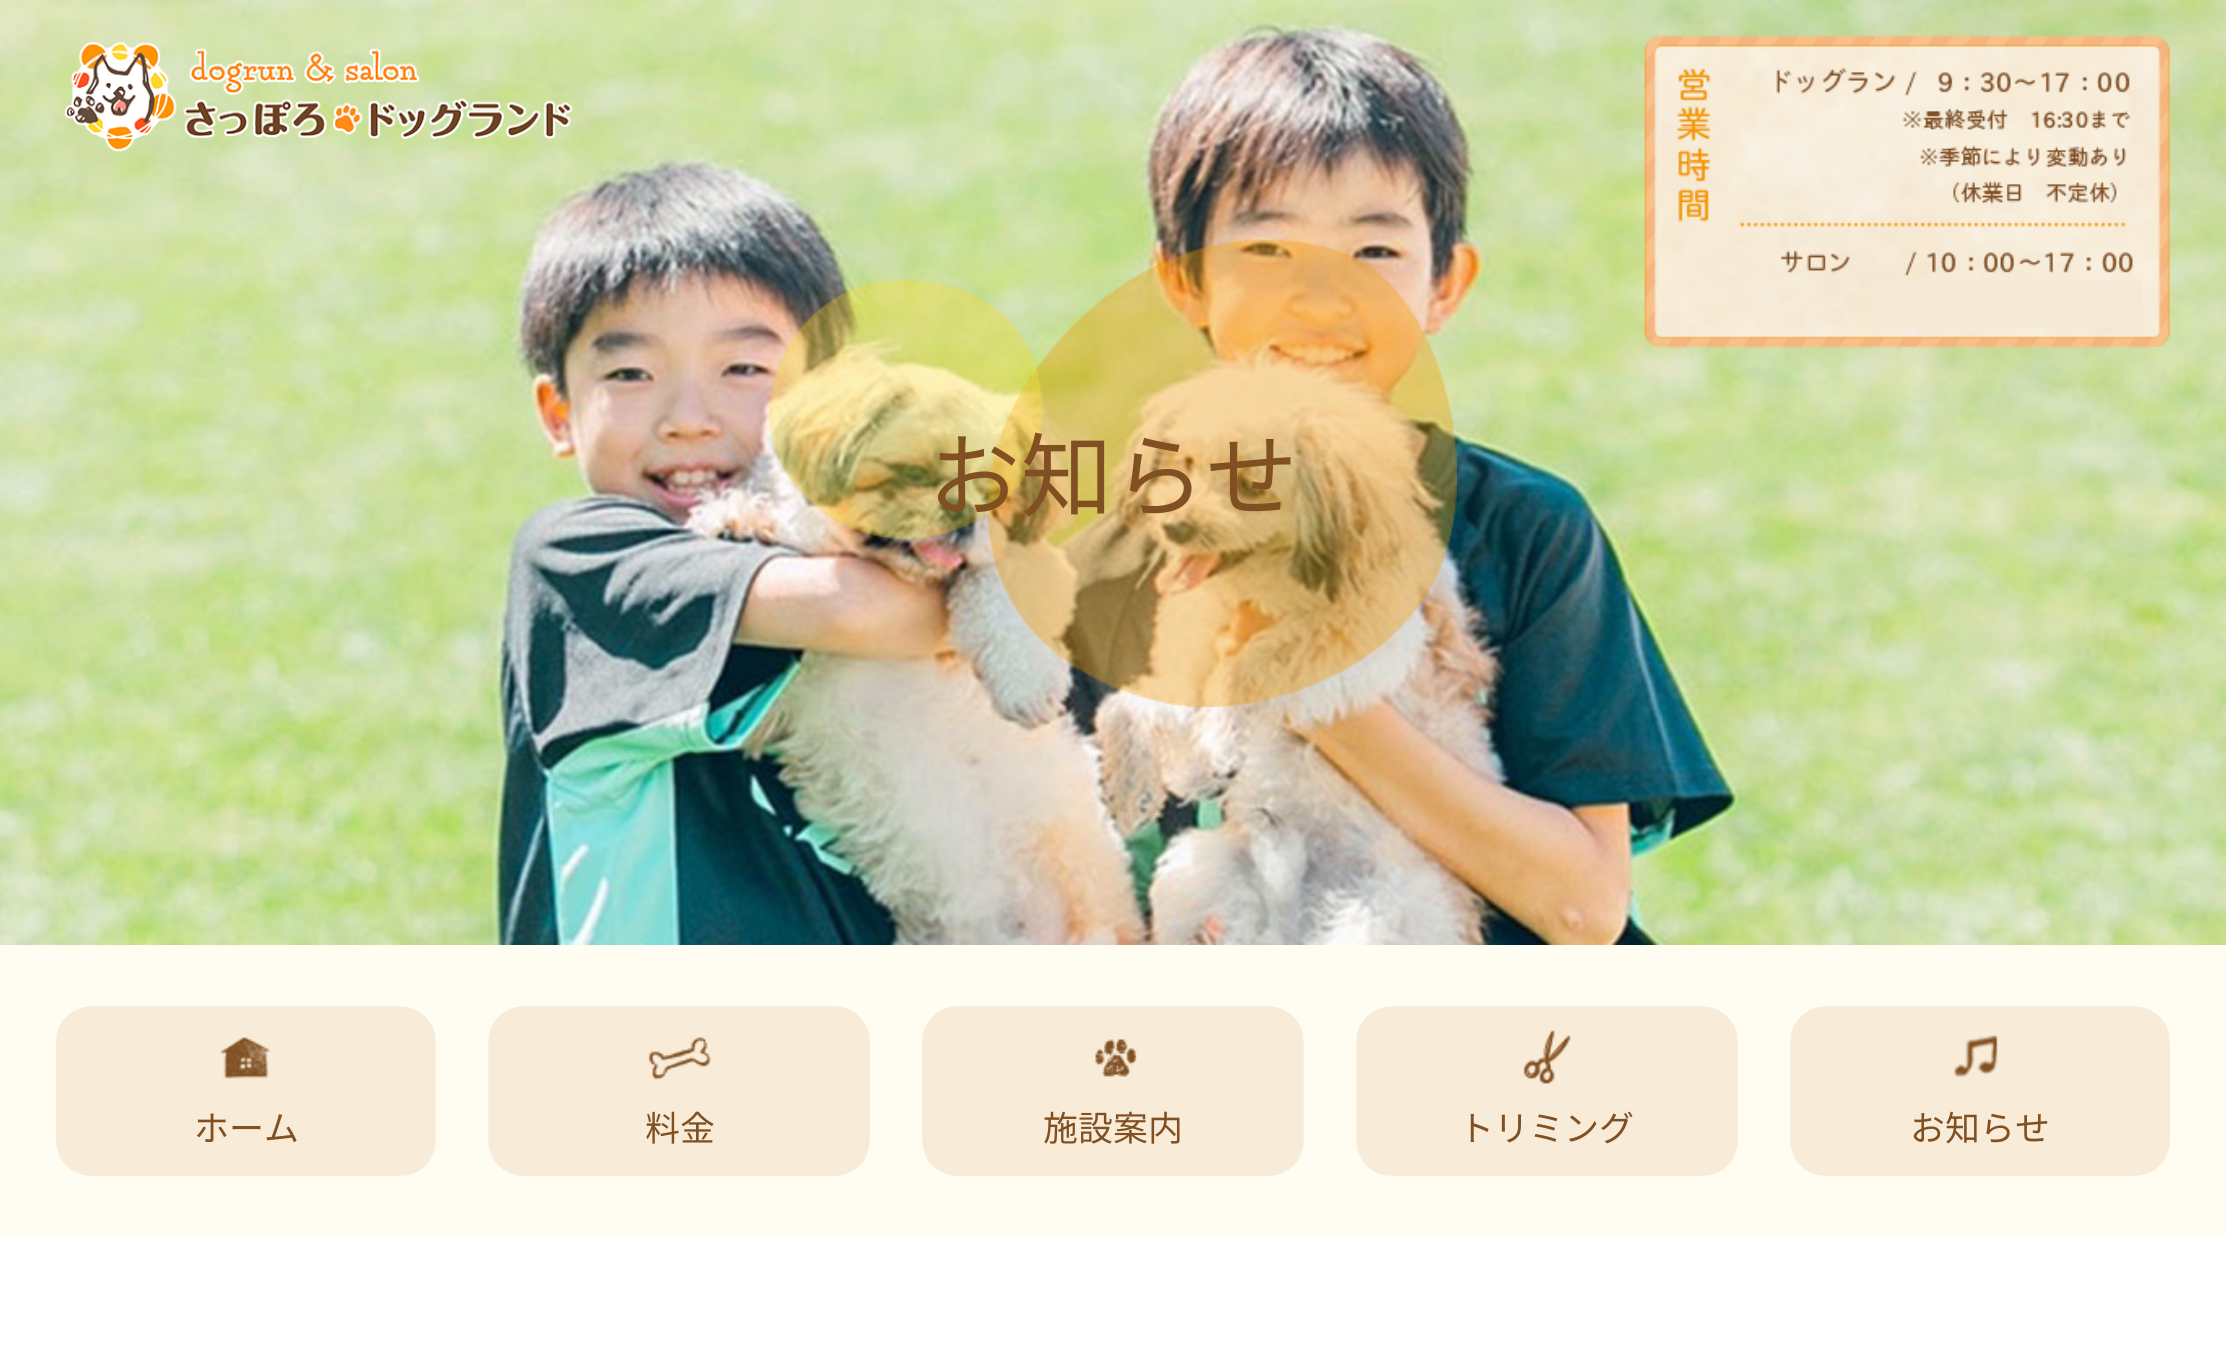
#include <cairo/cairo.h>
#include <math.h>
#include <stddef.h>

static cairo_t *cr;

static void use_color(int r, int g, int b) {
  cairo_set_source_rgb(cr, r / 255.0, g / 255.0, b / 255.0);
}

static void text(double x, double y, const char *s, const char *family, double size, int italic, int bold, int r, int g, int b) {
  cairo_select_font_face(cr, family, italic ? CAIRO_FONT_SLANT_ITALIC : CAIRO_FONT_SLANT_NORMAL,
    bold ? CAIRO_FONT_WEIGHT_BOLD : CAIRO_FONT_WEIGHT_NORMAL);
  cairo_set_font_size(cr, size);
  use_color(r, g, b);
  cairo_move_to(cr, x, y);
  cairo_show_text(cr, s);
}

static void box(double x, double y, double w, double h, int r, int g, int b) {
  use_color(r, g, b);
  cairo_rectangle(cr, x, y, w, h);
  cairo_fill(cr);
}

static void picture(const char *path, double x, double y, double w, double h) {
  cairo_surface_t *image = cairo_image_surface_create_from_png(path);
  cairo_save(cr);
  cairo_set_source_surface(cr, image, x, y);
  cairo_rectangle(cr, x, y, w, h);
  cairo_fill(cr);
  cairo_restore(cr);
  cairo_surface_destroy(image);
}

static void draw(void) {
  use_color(255, 255, 255);
  cairo_paint(cr);
  picture("img_03.png", 0, 0, 2226, 945);
  picture("img_01.png", 64, 42, 509, 110);
  picture("img_02.png", 1644, 35, 526, 314);
  picture("img_04.png", 769, 239, 688, 468);
  box(0, 945, 2226, 292, 255, 253, 242);
  picture("img_05.png", 56, 1006, 380, 170);
  picture("img_06.png", 220, 1037, 50, 42);
  picture("img_07.png", 488, 1006, 382, 170);
  picture("img_08.png", 648, 1037, 63, 43);
  picture("img_09.png", 922, 1006, 382, 170);
  picture("img_10.png", 1095, 1039, 42, 38);
  picture("img_11.png", 1356, 1006, 382, 170);
  picture("img_12.png", 1523, 1030, 48, 54);
  picture("img_13.png", 1790, 1006, 380, 170);
  picture("img_14.png", 1954, 1035, 44, 42);
  text(928, 510, "お知らせ", "Noto Sans CJK JP", 92.5, 0, 0, 128, 79, 34);
  text(194, 1141, "ホーム", "Noto Sans CJK JP", 35, 0, 0, 128, 79, 34);
  text(645, 1141, "料金", "Noto Sans CJK JP", 35, 0, 0, 128, 79, 34);
  text(1043, 1141, "施設案内", "Noto Sans CJK JP", 35, 0, 0, 128, 79, 34);
  text(1459, 1141, "トリミング", "Noto Sans CJK JP", 35, 0, 0, 128, 79, 34);
  text(1910, 1141, "お知らせ", "Noto Sans CJK JP", 35, 0, 0, 128, 79, 34);
}

int main(void) {
  cairo_surface_t *surface = cairo_image_surface_create(CAIRO_FORMAT_RGB24, 2226, 1360);
  cr = cairo_create(surface);
  cairo_font_options_t *options = cairo_font_options_create();
  cairo_font_options_set_hint_metrics(options, CAIRO_HINT_METRICS_OFF);
  cairo_font_options_set_hint_style(options, CAIRO_HINT_STYLE_NONE);
  cairo_set_font_options(cr, options);
  cairo_set_miter_limit(cr, 4);
  draw();
  cairo_surface_write_to_png(surface, "out.png");
  cairo_font_options_destroy(options);
  cairo_destroy(cr);
  cairo_surface_destroy(surface);
  return 0;
}
